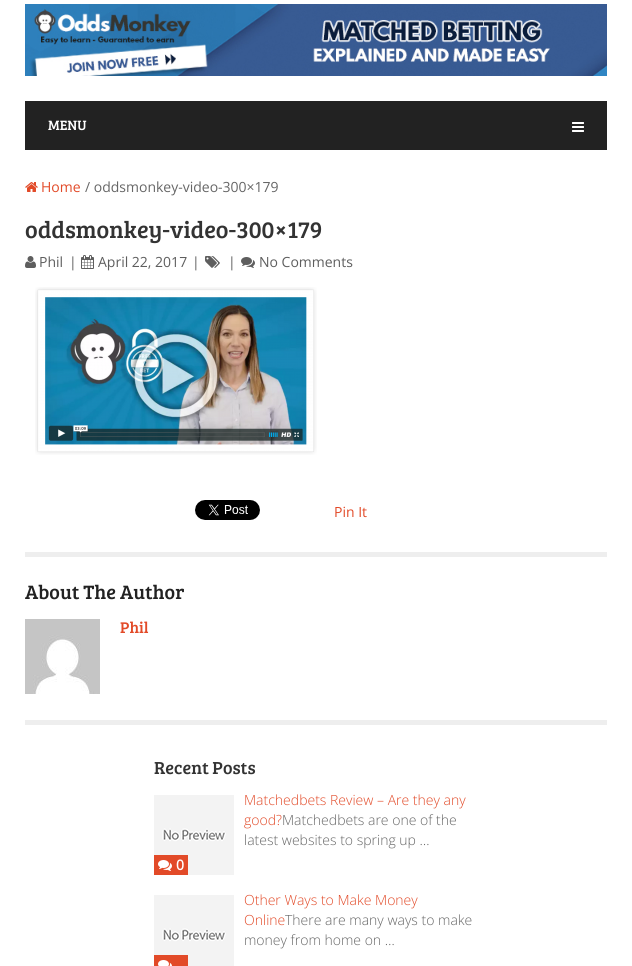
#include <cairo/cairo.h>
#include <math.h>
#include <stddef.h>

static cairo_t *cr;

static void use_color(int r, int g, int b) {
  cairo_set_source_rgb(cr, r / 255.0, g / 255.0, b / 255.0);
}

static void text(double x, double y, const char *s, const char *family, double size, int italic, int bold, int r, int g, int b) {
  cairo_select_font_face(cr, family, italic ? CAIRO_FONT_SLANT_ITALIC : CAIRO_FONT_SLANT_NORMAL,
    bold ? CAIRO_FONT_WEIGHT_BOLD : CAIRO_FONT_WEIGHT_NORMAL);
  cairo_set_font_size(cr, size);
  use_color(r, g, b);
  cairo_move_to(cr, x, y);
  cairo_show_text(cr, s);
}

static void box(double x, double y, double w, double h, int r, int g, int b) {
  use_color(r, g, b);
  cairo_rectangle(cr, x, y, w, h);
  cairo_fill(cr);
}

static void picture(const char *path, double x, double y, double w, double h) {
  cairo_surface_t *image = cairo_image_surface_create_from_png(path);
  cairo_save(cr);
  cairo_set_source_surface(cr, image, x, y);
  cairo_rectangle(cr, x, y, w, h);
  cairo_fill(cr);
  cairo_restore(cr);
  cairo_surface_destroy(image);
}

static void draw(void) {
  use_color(255, 255, 255);
  cairo_paint(cr);
  picture("img_01.png", 25, 4, 582, 72);
  box(25, 101, 582, 49, 34, 34, 34);
  picture("img_02.png", 572, 122, 12, 10);
  picture("img_03.png", 25, 182, 13, 10);
  box(25, 552, 582, 5, 238, 238, 238);
  picture("img_04.png", 25, 256, 11, 12);
  picture("img_05.png", 81, 255, 13, 14);
  picture("img_06.png", 205, 256, 15, 12);
  picture("img_07.png", 241, 257, 14, 11);
  picture("img_08.png", 35, 287, 282, 168);
  picture("img_09.png", 195, 500, 65, 20);
  box(25, 720, 582, 5, 238, 238, 238);
  picture("img_10.png", 25, 619, 75, 75);
  picture("img_11.png", 154, 795, 80, 80);
  box(154, 855, 34, 20, 226, 74, 40);
  picture("img_12.png", 158, 860, 14, 11);
  picture("img_13.png", 154, 895, 80, 71);
  box(154, 955, 34, 11, 226, 74, 40);
  picture("img_14.png", 158, 960, 14, 6);
  text(48, 130, "MENU", "Bree Serif", 14, 0, 0, 255, 255, 255);
  text(41, 192, "Home", "Open Sans", 14, 0, 0, 226, 74, 40);
  text(85, 192, "/ oddsmonkey-video-300×179", "Open Sans", 14, 0, 0, 102, 102, 102);
  text(25, 238, "oddsmonkey-video-300×179", "Bree Serif", 24, 0, 0, 51, 51, 51);
  text(39, 267, "Phil", "Open Sans", 14, 0, 0, 94, 94, 94);
  text(69, 267, "|", "Open Sans", 14, 0, 0, 94, 94, 94);
  text(98, 267, "April 22, 2017", "Open Sans", 14, 0, 0, 94, 94, 94);
  text(192, 267, "|", "Open Sans", 14, 0, 0, 94, 94, 94);
  text(228, 267, "|", "Open Sans", 14, 0, 0, 94, 94, 94);
  text(259, 267, "No Comments", "Open Sans", 14, 0, 0, 94, 94, 94);
  text(334, 517, "Pin It", "Open Sans", 14, 0, 0, 226, 74, 40);
  text(25, 599, "About The Author", "Bree Serif", 20, 0, 0, 34, 34, 34);
  text(120, 633, "Phil", "Bree Serif", 16, 0, 0, 226, 74, 40);
  text(154, 774, "Recent Posts", "Bree Serif", 18, 0, 0, 51, 51, 51);
  text(244, 805, "Matchedbets Review – Are they any", "Open Sans Light", 14, 0, 0, 226, 74, 40);
  text(244, 825, "good?", "Open Sans Light", 14, 0, 0, 226, 74, 40);
  text(282, 825, "Matchedbets are one of the", "Open Sans Light", 14, 0, 0, 102, 102, 102);
  text(244, 845, "latest websites to spring up …", "Open Sans Light", 14, 0, 0, 102, 102, 102);
  text(176, 870, "0", "Open Sans", 14, 0, 1, 255, 255, 255);
  text(244, 905, "Other Ways to Make Money", "Open Sans Light", 14, 0, 0, 226, 74, 40);
  text(244, 925, "Online", "Open Sans Light", 14, 0, 0, 226, 74, 40);
  text(285, 925, "There are many ways to make", "Open Sans Light", 14, 0, 0, 102, 102, 102);
  text(244, 945, "money from home on …", "Open Sans Light", 14, 0, 0, 102, 102, 102);
}

int main(void) {
  cairo_surface_t *surface = cairo_image_surface_create(CAIRO_FORMAT_RGB24, 632, 966);
  cr = cairo_create(surface);
  cairo_font_options_t *options = cairo_font_options_create();
  cairo_font_options_set_hint_metrics(options, CAIRO_HINT_METRICS_OFF);
  cairo_font_options_set_hint_style(options, CAIRO_HINT_STYLE_NONE);
  cairo_set_font_options(cr, options);
  cairo_set_miter_limit(cr, 4);
  draw();
  cairo_surface_write_to_png(surface, "out.png");
  cairo_font_options_destroy(options);
  cairo_destroy(cr);
  cairo_surface_destroy(surface);
  return 0;
}
